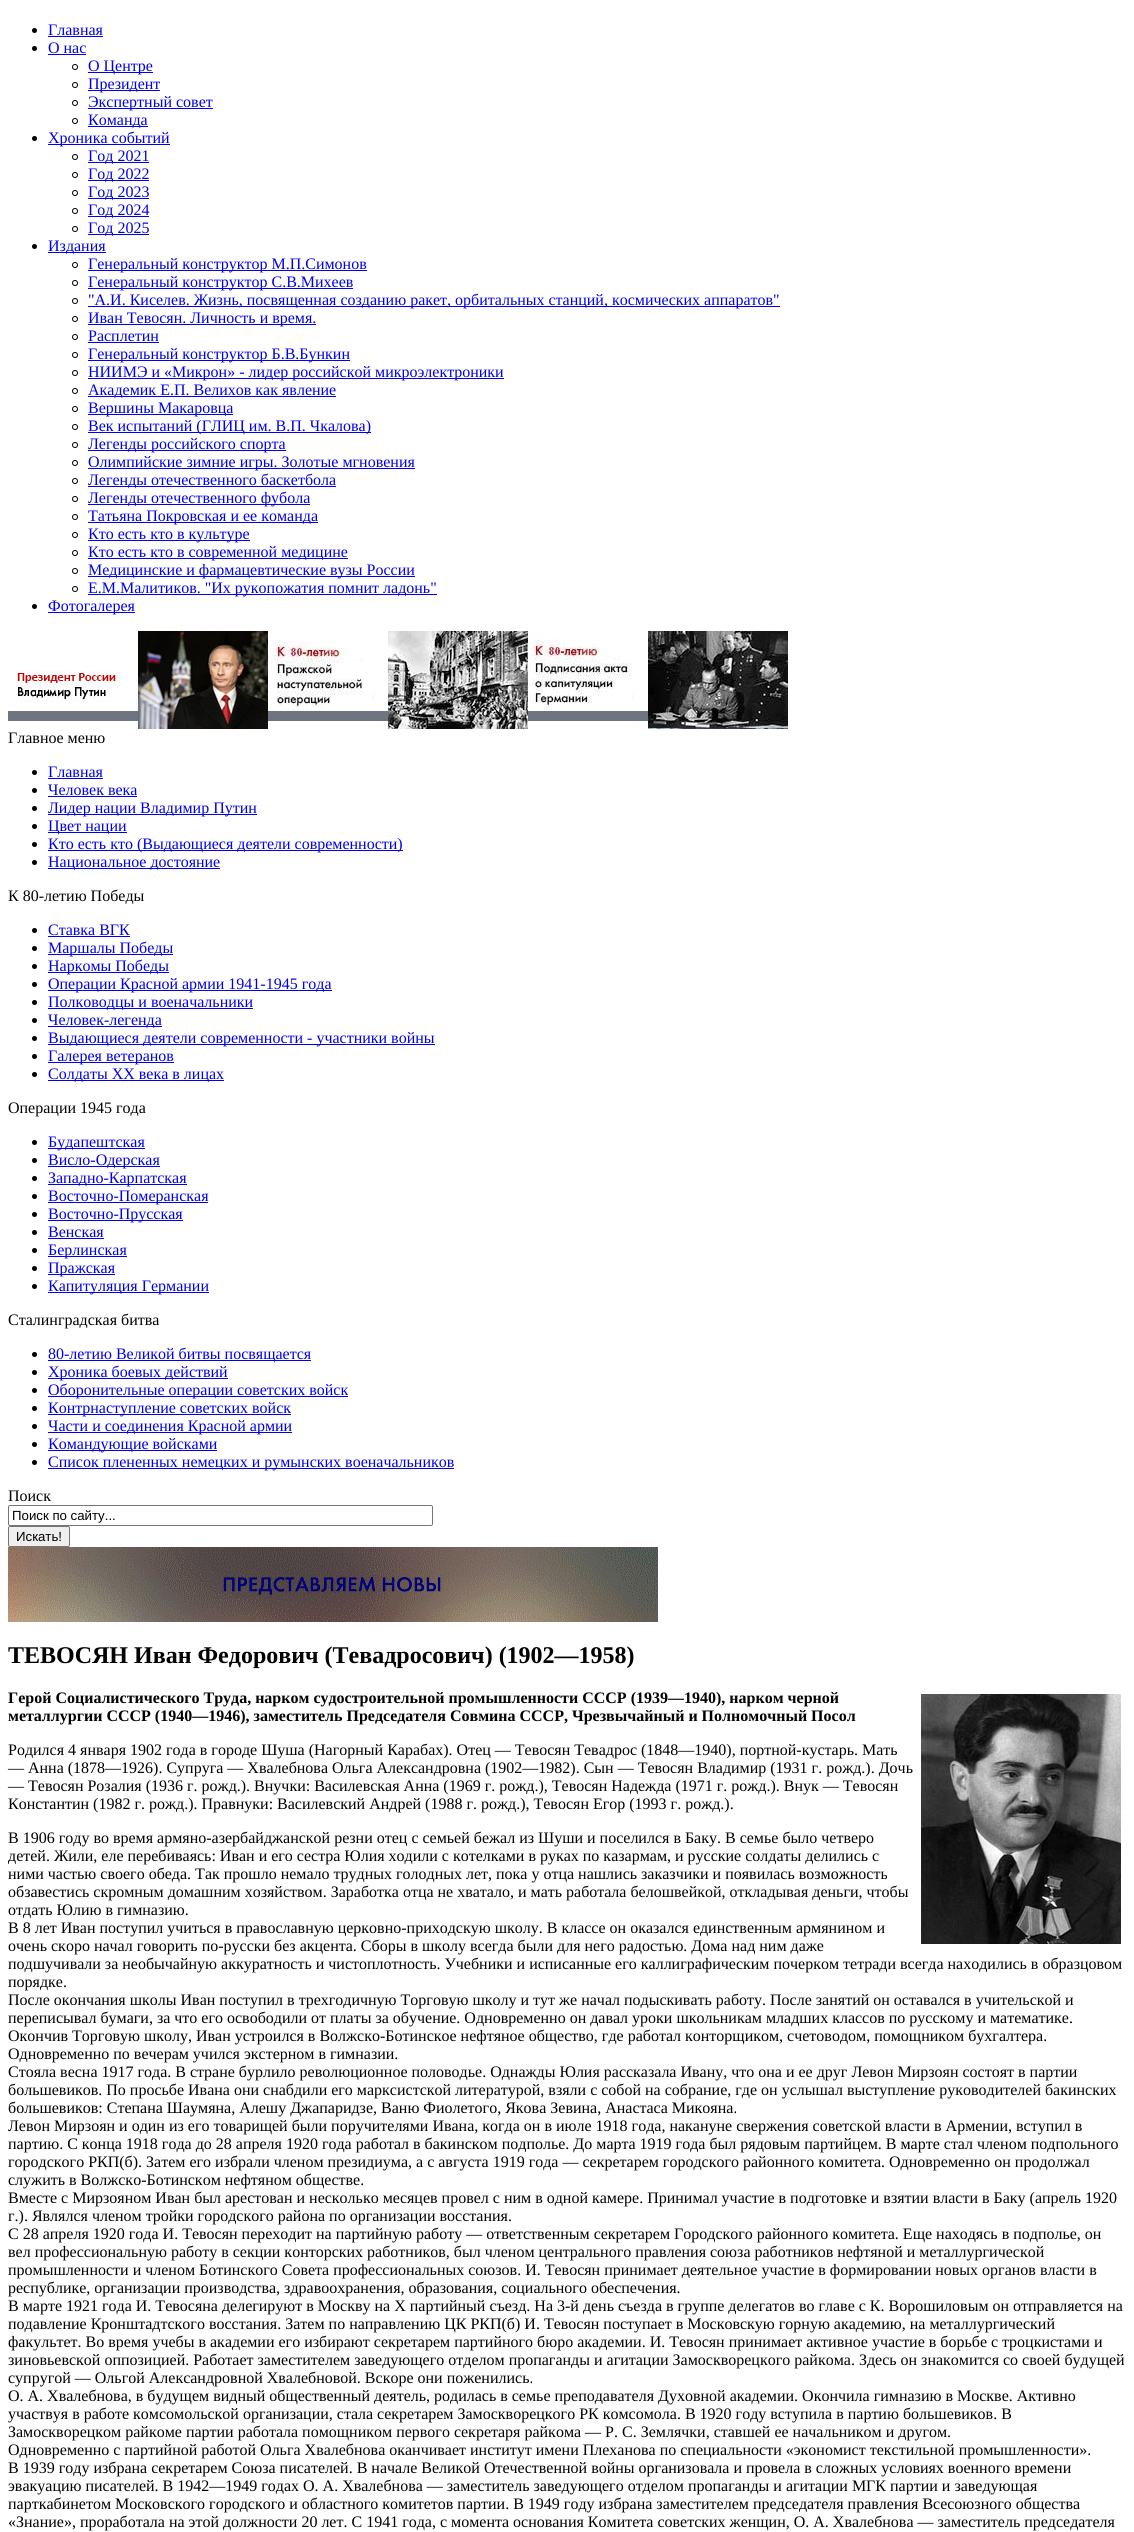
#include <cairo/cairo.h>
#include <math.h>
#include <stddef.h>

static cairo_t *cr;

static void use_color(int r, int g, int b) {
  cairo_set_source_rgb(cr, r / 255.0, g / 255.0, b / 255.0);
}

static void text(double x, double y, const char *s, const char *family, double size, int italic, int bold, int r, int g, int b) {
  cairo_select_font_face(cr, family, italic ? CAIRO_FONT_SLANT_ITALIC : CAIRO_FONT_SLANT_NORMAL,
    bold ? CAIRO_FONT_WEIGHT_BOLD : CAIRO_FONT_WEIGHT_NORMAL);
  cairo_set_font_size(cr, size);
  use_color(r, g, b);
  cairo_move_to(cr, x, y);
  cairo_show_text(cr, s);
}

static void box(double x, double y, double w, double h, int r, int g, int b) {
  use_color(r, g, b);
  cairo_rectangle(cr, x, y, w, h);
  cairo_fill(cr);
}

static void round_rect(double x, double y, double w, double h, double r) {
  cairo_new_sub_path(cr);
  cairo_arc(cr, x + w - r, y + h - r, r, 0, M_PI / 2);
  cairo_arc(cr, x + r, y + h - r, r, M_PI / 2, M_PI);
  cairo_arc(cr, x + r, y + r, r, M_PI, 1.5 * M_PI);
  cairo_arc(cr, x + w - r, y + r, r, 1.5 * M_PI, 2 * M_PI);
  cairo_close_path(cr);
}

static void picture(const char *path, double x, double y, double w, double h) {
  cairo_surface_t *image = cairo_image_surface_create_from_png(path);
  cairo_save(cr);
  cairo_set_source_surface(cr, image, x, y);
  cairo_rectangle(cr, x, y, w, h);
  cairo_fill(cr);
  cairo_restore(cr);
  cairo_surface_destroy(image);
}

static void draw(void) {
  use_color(255, 255, 255);
  cairo_paint(cr);
  use_color(0, 0, 0);
  cairo_arc(cr, 34.5, 30.5, 2.5, 0, 2 * M_PI);
  cairo_fill(cr);
  box(48, 36, 55, 1, 0, 0, 238);
  use_color(0, 0, 0);
  cairo_arc(cr, 34.5, 48.5, 2.5, 0, 2 * M_PI);
  cairo_fill(cr);
  box(48, 54, 38, 1, 0, 0, 238);
  cairo_arc(cr, 75, 67, 2.5, 0, 2 * M_PI);
  use_color(0, 0, 0);
  cairo_set_line_width(cr, 1);
  cairo_stroke(cr);
  box(88, 72, 65, 1, 0, 0, 238);
  cairo_arc(cr, 75, 85, 2.5, 0, 2 * M_PI);
  use_color(0, 0, 0);
  cairo_stroke(cr);
  box(88, 90, 72, 1, 0, 0, 238);
  cairo_arc(cr, 75, 103, 2.5, 0, 2 * M_PI);
  use_color(0, 0, 0);
  cairo_stroke(cr);
  box(88, 108, 125, 1, 0, 0, 238);
  cairo_arc(cr, 75, 121, 2.5, 0, 2 * M_PI);
  use_color(0, 0, 0);
  cairo_stroke(cr);
  box(88, 126, 60, 1, 0, 0, 238);
  use_color(0, 0, 0);
  cairo_arc(cr, 34.5, 138.5, 2.5, 0, 2 * M_PI);
  cairo_fill(cr);
  box(48, 144, 122, 1, 0, 0, 238);
  cairo_arc(cr, 75, 157, 2.5, 0, 2 * M_PI);
  use_color(0, 0, 0);
  cairo_stroke(cr);
  box(88, 162, 61, 1, 0, 0, 238);
  cairo_arc(cr, 75, 175, 2.5, 0, 2 * M_PI);
  use_color(0, 0, 0);
  cairo_stroke(cr);
  box(88, 180, 61, 1, 0, 0, 238);
  cairo_arc(cr, 75, 193, 2.5, 0, 2 * M_PI);
  use_color(0, 0, 0);
  cairo_stroke(cr);
  box(88, 198, 61, 1, 0, 0, 238);
  cairo_arc(cr, 75, 211, 2.5, 0, 2 * M_PI);
  use_color(0, 0, 0);
  cairo_stroke(cr);
  box(88, 216, 61, 1, 0, 0, 238);
  cairo_arc(cr, 75, 229, 2.5, 0, 2 * M_PI);
  use_color(0, 0, 0);
  cairo_stroke(cr);
  box(88, 234, 61, 1, 0, 0, 238);
  use_color(0, 0, 0);
  cairo_arc(cr, 34.5, 246.5, 2.5, 0, 2 * M_PI);
  cairo_fill(cr);
  box(48, 252, 58, 1, 0, 0, 238);
  cairo_arc(cr, 75, 265, 2.5, 0, 2 * M_PI);
  use_color(0, 0, 0);
  cairo_stroke(cr);
  box(88, 270, 279, 1, 0, 0, 238);
  cairo_arc(cr, 75, 283, 2.5, 0, 2 * M_PI);
  use_color(0, 0, 0);
  cairo_stroke(cr);
  box(88, 288, 265, 1, 0, 0, 238);
  cairo_arc(cr, 75, 301, 2.5, 0, 2 * M_PI);
  use_color(0, 0, 0);
  cairo_stroke(cr);
  box(88, 306, 692, 1, 0, 0, 238);
  cairo_arc(cr, 75, 319, 2.5, 0, 2 * M_PI);
  use_color(0, 0, 0);
  cairo_stroke(cr);
  box(88, 324, 228, 1, 0, 0, 238);
  cairo_arc(cr, 75, 337, 2.5, 0, 2 * M_PI);
  use_color(0, 0, 0);
  cairo_stroke(cr);
  box(88, 342, 71, 1, 0, 0, 238);
  cairo_arc(cr, 75, 355, 2.5, 0, 2 * M_PI);
  use_color(0, 0, 0);
  cairo_stroke(cr);
  box(88, 360, 262, 1, 0, 0, 238);
  cairo_arc(cr, 75, 373, 2.5, 0, 2 * M_PI);
  use_color(0, 0, 0);
  cairo_stroke(cr);
  box(88, 378, 416, 1, 0, 0, 238);
  cairo_arc(cr, 75, 391, 2.5, 0, 2 * M_PI);
  use_color(0, 0, 0);
  cairo_stroke(cr);
  box(88, 396, 248, 1, 0, 0, 238);
  cairo_arc(cr, 75, 409, 2.5, 0, 2 * M_PI);
  use_color(0, 0, 0);
  cairo_stroke(cr);
  box(88, 414, 145, 1, 0, 0, 238);
  cairo_arc(cr, 75, 427, 2.5, 0, 2 * M_PI);
  use_color(0, 0, 0);
  cairo_stroke(cr);
  box(88, 432, 283, 1, 0, 0, 238);
  cairo_arc(cr, 75, 445, 2.5, 0, 2 * M_PI);
  use_color(0, 0, 0);
  cairo_stroke(cr);
  box(88, 450, 198, 1, 0, 0, 238);
  cairo_arc(cr, 75, 463, 2.5, 0, 2 * M_PI);
  use_color(0, 0, 0);
  cairo_stroke(cr);
  box(88, 468, 327, 1, 0, 0, 238);
  cairo_arc(cr, 75, 481, 2.5, 0, 2 * M_PI);
  use_color(0, 0, 0);
  cairo_stroke(cr);
  box(88, 486, 248, 1, 0, 0, 238);
  cairo_arc(cr, 75, 499, 2.5, 0, 2 * M_PI);
  use_color(0, 0, 0);
  cairo_stroke(cr);
  box(88, 504, 222, 1, 0, 0, 238);
  cairo_arc(cr, 75, 517, 2.5, 0, 2 * M_PI);
  use_color(0, 0, 0);
  cairo_stroke(cr);
  box(88, 522, 230, 1, 0, 0, 238);
  cairo_arc(cr, 75, 535, 2.5, 0, 2 * M_PI);
  use_color(0, 0, 0);
  cairo_stroke(cr);
  box(88, 540, 162, 1, 0, 0, 238);
  cairo_arc(cr, 75, 553, 2.5, 0, 2 * M_PI);
  use_color(0, 0, 0);
  cairo_stroke(cr);
  box(88, 558, 260, 1, 0, 0, 238);
  cairo_arc(cr, 75, 571, 2.5, 0, 2 * M_PI);
  use_color(0, 0, 0);
  cairo_stroke(cr);
  box(88, 576, 327, 1, 0, 0, 238);
  cairo_arc(cr, 75, 589, 2.5, 0, 2 * M_PI);
  use_color(0, 0, 0);
  cairo_stroke(cr);
  box(88, 594, 349, 1, 0, 0, 238);
  use_color(0, 0, 0);
  cairo_arc(cr, 34.5, 606.5, 2.5, 0, 2 * M_PI);
  cairo_fill(cr);
  box(48, 612, 87, 1, 0, 0, 238);
  picture("img_01.png", 8, 631, 260, 98);
  picture("img_02.png", 268, 631, 260, 98);
  picture("img_03.png", 528, 631, 260, 98);
  use_color(0, 0, 0);
  cairo_arc(cr, 34.5, 772.5, 2.5, 0, 2 * M_PI);
  cairo_fill(cr);
  box(48, 778, 55, 1, 0, 0, 238);
  use_color(0, 0, 0);
  cairo_arc(cr, 34.5, 790.5, 2.5, 0, 2 * M_PI);
  cairo_fill(cr);
  box(48, 796, 89, 1, 0, 0, 238);
  use_color(0, 0, 0);
  cairo_arc(cr, 34.5, 808.5, 2.5, 0, 2 * M_PI);
  cairo_fill(cr);
  box(48, 814, 209, 1, 0, 0, 238);
  use_color(0, 0, 0);
  cairo_arc(cr, 34.5, 826.5, 2.5, 0, 2 * M_PI);
  cairo_fill(cr);
  box(48, 832, 79, 1, 0, 0, 238);
  use_color(0, 0, 0);
  cairo_arc(cr, 34.5, 844.5, 2.5, 0, 2 * M_PI);
  cairo_fill(cr);
  box(48, 850, 355, 1, 0, 0, 238);
  use_color(0, 0, 0);
  cairo_arc(cr, 34.5, 862.5, 2.5, 0, 2 * M_PI);
  cairo_fill(cr);
  box(48, 868, 172, 1, 0, 0, 238);
  use_color(0, 0, 0);
  cairo_arc(cr, 34.5, 930.5, 2.5, 0, 2 * M_PI);
  cairo_fill(cr);
  box(48, 936, 82, 1, 0, 0, 238);
  use_color(0, 0, 0);
  cairo_arc(cr, 34.5, 948.5, 2.5, 0, 2 * M_PI);
  cairo_fill(cr);
  box(48, 954, 125, 1, 0, 0, 238);
  use_color(0, 0, 0);
  cairo_arc(cr, 34.5, 966.5, 2.5, 0, 2 * M_PI);
  cairo_fill(cr);
  box(48, 972, 121, 1, 0, 0, 238);
  use_color(0, 0, 0);
  cairo_arc(cr, 34.5, 984.5, 2.5, 0, 2 * M_PI);
  cairo_fill(cr);
  box(48, 990, 284, 1, 0, 0, 238);
  use_color(0, 0, 0);
  cairo_arc(cr, 34.5, 1002.5, 2.5, 0, 2 * M_PI);
  cairo_fill(cr);
  box(48, 1008, 205, 1, 0, 0, 238);
  use_color(0, 0, 0);
  cairo_arc(cr, 34.5, 1020.5, 2.5, 0, 2 * M_PI);
  cairo_fill(cr);
  box(48, 1026, 114, 1, 0, 0, 238);
  use_color(0, 0, 0);
  cairo_arc(cr, 34.5, 1038.5, 2.5, 0, 2 * M_PI);
  cairo_fill(cr);
  box(48, 1044, 387, 1, 0, 0, 238);
  use_color(0, 0, 0);
  cairo_arc(cr, 34.5, 1056.5, 2.5, 0, 2 * M_PI);
  cairo_fill(cr);
  box(48, 1062, 126, 1, 0, 0, 238);
  use_color(0, 0, 0);
  cairo_arc(cr, 34.5, 1074.5, 2.5, 0, 2 * M_PI);
  cairo_fill(cr);
  box(48, 1080, 176, 1, 0, 0, 238);
  use_color(0, 0, 0);
  cairo_arc(cr, 34.5, 1142.5, 2.5, 0, 2 * M_PI);
  cairo_fill(cr);
  box(48, 1148, 97, 1, 0, 0, 238);
  use_color(0, 0, 0);
  cairo_arc(cr, 34.5, 1160.5, 2.5, 0, 2 * M_PI);
  cairo_fill(cr);
  box(48, 1166, 112, 1, 0, 0, 238);
  use_color(0, 0, 0);
  cairo_arc(cr, 34.5, 1178.5, 2.5, 0, 2 * M_PI);
  cairo_fill(cr);
  box(48, 1184, 139, 1, 0, 0, 238);
  use_color(0, 0, 0);
  cairo_arc(cr, 34.5, 1196.5, 2.5, 0, 2 * M_PI);
  cairo_fill(cr);
  box(48, 1202, 160, 1, 0, 0, 238);
  use_color(0, 0, 0);
  cairo_arc(cr, 34.5, 1214.5, 2.5, 0, 2 * M_PI);
  cairo_fill(cr);
  box(48, 1220, 135, 1, 0, 0, 238);
  use_color(0, 0, 0);
  cairo_arc(cr, 34.5, 1232.5, 2.5, 0, 2 * M_PI);
  cairo_fill(cr);
  box(48, 1238, 56, 1, 0, 0, 238);
  use_color(0, 0, 0);
  cairo_arc(cr, 34.5, 1250.5, 2.5, 0, 2 * M_PI);
  cairo_fill(cr);
  box(48, 1256, 79, 1, 0, 0, 238);
  use_color(0, 0, 0);
  cairo_arc(cr, 34.5, 1268.5, 2.5, 0, 2 * M_PI);
  cairo_fill(cr);
  box(48, 1274, 67, 1, 0, 0, 238);
  use_color(0, 0, 0);
  cairo_arc(cr, 34.5, 1286.5, 2.5, 0, 2 * M_PI);
  cairo_fill(cr);
  box(48, 1292, 161, 1, 0, 0, 238);
  use_color(0, 0, 0);
  cairo_arc(cr, 34.5, 1354.5, 2.5, 0, 2 * M_PI);
  cairo_fill(cr);
  box(48, 1360, 263, 1, 0, 0, 238);
  use_color(0, 0, 0);
  cairo_arc(cr, 34.5, 1372.5, 2.5, 0, 2 * M_PI);
  cairo_fill(cr);
  box(48, 1378, 180, 1, 0, 0, 238);
  use_color(0, 0, 0);
  cairo_arc(cr, 34.5, 1390.5, 2.5, 0, 2 * M_PI);
  cairo_fill(cr);
  box(48, 1396, 300, 1, 0, 0, 238);
  use_color(0, 0, 0);
  cairo_arc(cr, 34.5, 1408.5, 2.5, 0, 2 * M_PI);
  cairo_fill(cr);
  box(48, 1414, 243, 1, 0, 0, 238);
  use_color(0, 0, 0);
  cairo_arc(cr, 34.5, 1426.5, 2.5, 0, 2 * M_PI);
  cairo_fill(cr);
  box(48, 1432, 244, 1, 0, 0, 238);
  use_color(0, 0, 0);
  cairo_arc(cr, 34.5, 1444.5, 2.5, 0, 2 * M_PI);
  cairo_fill(cr);
  box(48, 1450, 169, 1, 0, 0, 238);
  use_color(0, 0, 0);
  cairo_arc(cr, 34.5, 1462.5, 2.5, 0, 2 * M_PI);
  cairo_fill(cr);
  box(48, 1468, 406, 1, 0, 0, 238);
  round_rect(8.5, 1505.5, 424, 20, 1.5);
  use_color(118, 118, 118);
  cairo_stroke(cr);
  use_color(239, 239, 239);
  round_rect(8.5, 1526.5, 61, 20, 1.5);
  cairo_fill_preserve(cr);
  use_color(118, 118, 118);
  cairo_stroke(cr);
  picture("img_04.png", 8, 1547, 650, 75);
  picture("img_05.png", 921, 1694, 200, 250);
  text(48, 35, "Главная", "Liberation Serif", 16, 0, 0, 0, 0, 238);
  text(48, 53, "О нас", "Liberation Serif", 16, 0, 0, 0, 0, 238);
  text(88, 71, "О Центре", "Liberation Serif", 16, 0, 0, 0, 0, 238);
  text(88, 89, "Президент", "Liberation Serif", 16, 0, 0, 0, 0, 238);
  text(88, 107, "Экспертный совет", "Liberation Serif", 16, 0, 0, 0, 0, 238);
  text(88, 125, "Команда", "Liberation Serif", 16, 0, 0, 0, 0, 238);
  text(48, 143, "Хроника событий", "Liberation Serif", 16, 0, 0, 0, 0, 238);
  text(88, 161, "Год 2021", "Liberation Serif", 16, 0, 0, 0, 0, 238);
  text(88, 179, "Год 2022", "Liberation Serif", 16, 0, 0, 0, 0, 238);
  text(88, 197, "Год 2023", "Liberation Serif", 16, 0, 0, 0, 0, 238);
  text(88, 215, "Год 2024", "Liberation Serif", 16, 0, 0, 0, 0, 238);
  text(88, 233, "Год 2025", "Liberation Serif", 16, 0, 0, 0, 0, 238);
  text(48, 251, "Издания", "Liberation Serif", 16, 0, 0, 0, 0, 238);
  text(88, 269, "Генеральный конструктор М.П.Симонов", "Liberation Serif", 16, 0, 0, 0, 0, 238);
  text(88, 287, "Генеральный конструктор С.В.Михеев", "Liberation Serif", 16, 0, 0, 0, 0, 238);
  text(88, 305, "\"А.И. Киселев. Жизнь, посвященная созданию ракет, орбитальных станций, космических аппаратов\"", "Liberation Serif", 16, 0, 0, 0, 0, 238);
  text(88, 323, "Иван Тевосян. Личность и время.", "Liberation Serif", 16, 0, 0, 0, 0, 238);
  text(88, 341, "Расплетин", "Liberation Serif", 16, 0, 0, 0, 0, 238);
  text(88, 359, "Генеральный конструктор Б.В.Бункин", "Liberation Serif", 16, 0, 0, 0, 0, 238);
  text(88, 377, "НИИМЭ и «Микрон» - лидер российской микроэлектроники", "Liberation Serif", 16, 0, 0, 0, 0, 238);
  text(88, 395, "Академик Е.П. Велихов как явление", "Liberation Serif", 16, 0, 0, 0, 0, 238);
  text(88, 413, "Вершины Макаровца", "Liberation Serif", 16, 0, 0, 0, 0, 238);
  text(88, 431, "Век испытаний (ГЛИЦ им. В.П. Чкалова)", "Liberation Serif", 16, 0, 0, 0, 0, 238);
  text(88, 449, "Легенды российского спорта", "Liberation Serif", 16, 0, 0, 0, 0, 238);
  text(88, 467, "Олимпийские зимние игры. Золотые мгновения", "Liberation Serif", 16, 0, 0, 0, 0, 238);
  text(88, 485, "Легенды отечественного баскетбола", "Liberation Serif", 16, 0, 0, 0, 0, 238);
  text(88, 503, "Легенды отечественного фубола", "Liberation Serif", 16, 0, 0, 0, 0, 238);
  text(88, 521, "Татьяна Покровская и ее команда", "Liberation Serif", 16, 0, 0, 0, 0, 238);
  text(88, 539, "Кто есть кто в культуре", "Liberation Serif", 16, 0, 0, 0, 0, 238);
  text(88, 557, "Кто есть кто в современной медицине", "Liberation Serif", 16, 0, 0, 0, 0, 238);
  text(88, 575, "Медицинские и фармацевтические вузы России", "Liberation Serif", 16, 0, 0, 0, 0, 238);
  text(88, 593, "Е.М.Малитиков. \"Их рукопожатия помнит ладонь\"", "Liberation Serif", 16, 0, 0, 0, 0, 238);
  text(48, 611, "Фотогалерея", "Liberation Serif", 16, 0, 0, 0, 0, 238);
  text(8, 743, "Главное меню", "Liberation Serif", 16, 0, 0, 0, 0, 0);
  text(48, 777, "Главная", "Liberation Serif", 16, 0, 0, 0, 0, 238);
  text(48, 795, "Человек века", "Liberation Serif", 16, 0, 0, 0, 0, 238);
  text(48, 813, "Лидер нации Владимир Путин", "Liberation Serif", 16, 0, 0, 0, 0, 238);
  text(48, 831, "Цвет нации", "Liberation Serif", 16, 0, 0, 0, 0, 238);
  text(48, 849, "Кто есть кто (Выдающиеся деятели современности)", "Liberation Serif", 16, 0, 0, 0, 0, 238);
  text(48, 867, "Национальное достояние", "Liberation Serif", 16, 0, 0, 0, 0, 238);
  text(8, 901, "К 80-летию Победы", "Liberation Serif", 16, 0, 0, 0, 0, 0);
  text(48, 935, "Ставка ВГК", "Liberation Serif", 16, 0, 0, 0, 0, 238);
  text(48, 953, "Маршалы Победы", "Liberation Serif", 16, 0, 0, 0, 0, 238);
  text(48, 971, "Наркомы Победы", "Liberation Serif", 16, 0, 0, 0, 0, 238);
  text(48, 989, "Операции Красной армии 1941-1945 года", "Liberation Serif", 16, 0, 0, 0, 0, 238);
  text(48, 1007, "Полководцы и военачальники", "Liberation Serif", 16, 0, 0, 0, 0, 238);
  text(48, 1025, "Человек-легенда", "Liberation Serif", 16, 0, 0, 0, 0, 238);
  text(48, 1043, "Выдающиеся деятели современности - участники войны", "Liberation Serif", 16, 0, 0, 0, 0, 238);
  text(48, 1061, "Галерея ветеранов", "Liberation Serif", 16, 0, 0, 0, 0, 238);
  text(48, 1079, "Солдаты XX века в лицах", "Liberation Serif", 16, 0, 0, 0, 0, 238);
  text(8, 1113, "Операции 1945 года", "Liberation Serif", 16, 0, 0, 0, 0, 0);
  text(48, 1147, "Будапештская", "Liberation Serif", 16, 0, 0, 0, 0, 238);
  text(48, 1165, "Висло-Одерская", "Liberation Serif", 16, 0, 0, 0, 0, 238);
  text(48, 1183, "Западно-Карпатская", "Liberation Serif", 16, 0, 0, 0, 0, 238);
  text(48, 1201, "Восточно-Померанская", "Liberation Serif", 16, 0, 0, 0, 0, 238);
  text(48, 1219, "Восточно-Прусская", "Liberation Serif", 16, 0, 0, 0, 0, 238);
  text(48, 1237, "Венская", "Liberation Serif", 16, 0, 0, 0, 0, 238);
  text(48, 1255, "Берлинская", "Liberation Serif", 16, 0, 0, 0, 0, 238);
  text(48, 1273, "Пражская", "Liberation Serif", 16, 0, 0, 0, 0, 238);
  text(48, 1291, "Капитуляция Германии", "Liberation Serif", 16, 0, 0, 0, 0, 238);
  text(8, 1325, "Сталинградская битва", "Liberation Serif", 16, 0, 0, 0, 0, 0);
  text(48, 1359, "80-летию Великой битвы посвящается", "Liberation Serif", 16, 0, 0, 0, 0, 238);
  text(48, 1377, "Хроника боевых действий", "Liberation Serif", 16, 0, 0, 0, 0, 238);
  text(48, 1395, "Оборонительные операции советских войск", "Liberation Serif", 16, 0, 0, 0, 0, 238);
  text(48, 1413, "Контрнаступление советских войск", "Liberation Serif", 16, 0, 0, 0, 0, 238);
  text(48, 1431, "Части и соединения Красной армии", "Liberation Serif", 16, 0, 0, 0, 0, 238);
  text(48, 1449, "Командующие войсками", "Liberation Serif", 16, 0, 0, 0, 0, 238);
  text(48, 1467, "Список плененных немецких и румынских военачальников", "Liberation Serif", 16, 0, 0, 0, 0, 238);
  text(8, 1501, "Поиск", "Liberation Serif", 16, 0, 0, 0, 0, 0);
  text(12, 1520, "Поиск по сайту...", "Liberation Sans", 13.25, 0, 0, 0, 0, 0);
  text(16, 1541, "Искать!", "Liberation Sans", 13.25, 0, 0, 0, 0, 0);
  text(8, 1663, "ТЕВОСЯН Иван Федорович (Тевадросович) (1902—1958)", "Liberation Serif", 24, 0, 1, 0, 0, 0);
  text(8, 1703, "Герой Социалистического Труда, нарком судостроительной промышленности СССР (1939—1940), нарком черной", "Liberation Serif", 16, 0, 1, 0, 0, 0);
  text(8, 1721, "металлургии СССР (1940—1946), заместитель Председателя Совмина СССР, Чрезвычайный и Полномочный Посол", "Liberation Serif", 16, 0, 1, 0, 0, 0);
  text(8, 1755, "Родился 4 января 1902 года в городе Шуша (Нагорный Карабах). Отец — Тевосян Тевадрос (1848—1940), портной-кустарь. Мать", "Liberation Serif", 16, 0, 0, 0, 0, 0);
  text(8, 1773, "— Анна (1878—1926). Супруга — Хвалебнова Ольга Александровна (1902—1982). Сын — Тевосян Владимир (1931 г. рожд.). Дочь", "Liberation Serif", 16, 0, 0, 0, 0, 0);
  text(8, 1791, "— Тевосян Розалия (1936 г. рожд.). Внучки: Василевская Анна (1969 г. рожд.), Тевосян Надежда (1971 г. рожд.). Внук — Тевосян", "Liberation Serif", 16, 0, 0, 0, 0, 0);
  text(8, 1809, "Константин (1982 г. рожд.). Правнуки: Василевский Андрей (1988 г. рожд.), Тевосян Егор (1993 г. рожд.).", "Liberation Serif", 16, 0, 0, 0, 0, 0);
  text(8, 1843, "В 1906 году во время армяно-азербайджанской резни отец с семьей бежал из Шуши и поселился в Баку. В семье было четверо", "Liberation Serif", 16, 0, 0, 0, 0, 0);
  text(8, 1861, "детей. Жили, еле перебиваясь: Иван и его сестра Юлия ходили с котелками в руках по казармам, и русские солдаты делились с", "Liberation Serif", 16, 0, 0, 0, 0, 0);
  text(8, 1879, "ними частью своего обеда. Так прошло немало трудных голодных лет, пока у отца нашлись заказчики и появилась возможность", "Liberation Serif", 16, 0, 0, 0, 0, 0);
  text(8, 1897, "обзавестись скромным домашним хозяйством. Заработка отца не хватало, и мать работала белошвейкой, откладывая деньги, чтобы", "Liberation Serif", 16, 0, 0, 0, 0, 0);
  text(8, 1915, "отдать Юлию в гимназию.", "Liberation Serif", 16, 0, 0, 0, 0, 0);
  text(8, 1933, "В 8 лет Иван поступил учиться в православную церковно-приходскую школу. В классе он оказался единственным армянином и", "Liberation Serif", 16, 0, 0, 0, 0, 0);
  text(8, 1951, "очень скоро начал говорить по-русски без акцента. Сборы в школу всегда были для него радостью. Дома над ним даже", "Liberation Serif", 16, 0, 0, 0, 0, 0);
  text(8, 1969, "подшучивали за необычайную аккуратность и чистоплотность. Учебники и исписанные его каллиграфическим почерком тетради всегда находились в образцовом", "Liberation Serif", 16, 0, 0, 0, 0, 0);
  text(8, 1987, "порядке.", "Liberation Serif", 16, 0, 0, 0, 0, 0);
  text(8, 2005, "После окончания школы Иван поступил в трехгодичную Торговую школу и тут же начал подыскивать работу. После занятий он оставался в учительской и", "Liberation Serif", 16, 0, 0, 0, 0, 0);
  text(8, 2023, "переписывал бумаги, за что его освободили от платы за обучение. Одновременно он давал уроки школьникам младших классов по русскому и математике.", "Liberation Serif", 16, 0, 0, 0, 0, 0);
  text(8, 2041, "Окончив Торговую школу, Иван устроился в Волжско-Ботинское нефтяное общество, где работал конторщиком, счетоводом, помощником бухгалтера.", "Liberation Serif", 16, 0, 0, 0, 0, 0);
  text(8, 2059, "Одновременно по вечерам учился экстерном в гимназии.", "Liberation Serif", 16, 0, 0, 0, 0, 0);
  text(8, 2077, "Стояла весна 1917 года. В стране бурлило революционное половодье. Однажды Юлия рассказала Ивану, что она и ее друг Левон Мирзоян состоят в партии", "Liberation Serif", 16, 0, 0, 0, 0, 0);
  text(8, 2095, "большевиков. По просьбе Ивана они снабдили его марксистской литературой, взяли с собой на собрание, где он услышал выступление руководителей бакинских", "Liberation Serif", 16, 0, 0, 0, 0, 0);
  text(8, 2113, "большевиков: Степана Шаумяна, Алешу Джапаридзе, Ваню Фиолетого, Якова Зевина, Анастаса Микояна.", "Liberation Serif", 16, 0, 0, 0, 0, 0);
  text(8, 2131, "Левон Мирзоян и один из его товарищей были поручителями Ивана, когда он в июле 1918 года, накануне свержения советской власти в Армении, вступил в", "Liberation Serif", 16, 0, 0, 0, 0, 0);
  text(8, 2149, "партию. С конца 1918 года до 28 апреля 1920 года работал в бакинском подполье. До марта 1919 года был рядовым партийцем. В марте стал членом подпольного", "Liberation Serif", 16, 0, 0, 0, 0, 0);
  text(8, 2167, "городского РКП(б). Затем его избрали членом президиума, а с августа 1919 года — секретарем городского районного комитета. Одновременно он продолжал", "Liberation Serif", 16, 0, 0, 0, 0, 0);
  text(8, 2185, "служить в Волжско-Ботинском нефтяном обществе.", "Liberation Serif", 16, 0, 0, 0, 0, 0);
  text(8, 2203, "Вместе с Мирзояном Иван был арестован и несколько месяцев провел с ним в одной камере. Принимал участие в подготовке и взятии власти в Баку (апрель 1920", "Liberation Serif", 16, 0, 0, 0, 0, 0);
  text(8, 2221, "г.). Являлся членом тройки городского района по организации восстания.", "Liberation Serif", 16, 0, 0, 0, 0, 0);
  text(8, 2239, "С 28 апреля 1920 года И. Тевосян переходит на партийную работу — ответственным секретарем Городского районного комитета. Еще находясь в подполье, он", "Liberation Serif", 16, 0, 0, 0, 0, 0);
  text(8, 2257, "вел профессиональную работу в секции конторских работников, был членом центрального правления союза работников нефтяной и металлургической", "Liberation Serif", 16, 0, 0, 0, 0, 0);
  text(8, 2275, "промышленности и членом Ботинского Совета профессиональных союзов. И. Тевосян принимает деятельное участие в формировании новых органов власти в", "Liberation Serif", 16, 0, 0, 0, 0, 0);
  text(8, 2293, "республике, организации производства, здравоохранения, образования, социального обеспечения.", "Liberation Serif", 16, 0, 0, 0, 0, 0);
  text(8, 2311, "В марте 1921 года И. Тевосяна делегируют в Москву на Х партийный съезд. На 3-й день съезда в группе делегатов во главе с К. Ворошиловым он отправляется на", "Liberation Serif", 16, 0, 0, 0, 0, 0);
  text(8, 2329, "подавление Кронштадтского восстания. Затем по направлению ЦК РКП(б) И. Тевосян поступает в Московскую горную академию, на металлургический", "Liberation Serif", 16, 0, 0, 0, 0, 0);
  text(8, 2347, "факультет. Во время учебы в академии его избирают секретарем партийного бюро академии. И. Тевосян принимает активное участие в борьбе с троцкистами и", "Liberation Serif", 16, 0, 0, 0, 0, 0);
  text(8, 2365, "зиновьевской оппозицией. Работает заместителем заведующего отделом пропаганды и агитации Замоскворецкого райкома. Здесь он знакомится со своей будущей", "Liberation Serif", 16, 0, 0, 0, 0, 0);
  text(8, 2383, "супругой — Ольгой Александровной Хвалебновой. Вскоре они поженились.", "Liberation Serif", 16, 0, 0, 0, 0, 0);
  text(8, 2401, "О. А. Хвалебнова, в будущем видный общественный деятель, родилась в семье преподавателя Духовной академии. Окончила гимназию в Москве. Активно", "Liberation Serif", 16, 0, 0, 0, 0, 0);
  text(8, 2419, "участвуя в работе комсомольской организации, стала секретарем Замоскворецкого РК комсомола. В 1920 году вступила в партию большевиков. В", "Liberation Serif", 16, 0, 0, 0, 0, 0);
  text(8, 2437, "Замоскворецком райкоме партии работала помощником первого секретаря райкома — Р. С. Землячки, ставшей ее начальником и другом.", "Liberation Serif", 16, 0, 0, 0, 0, 0);
  text(8, 2455, "Одновременно с партийной работой Ольга Хвалебнова оканчивает институт имени Плеханова по специальности «экономист текстильной промышленности».", "Liberation Serif", 16, 0, 0, 0, 0, 0);
  text(8, 2473, "В 1939 году избрана секретарем Союза писателей. В начале Великой Отечественной войны организовала и провела в сложных условиях военного времени", "Liberation Serif", 16, 0, 0, 0, 0, 0);
  text(8, 2491, "эвакуацию писателей. В 1942—1949 годах О. А. Хвалебнова — заместитель заведующего отделом пропаганды и агитации МГК партии и заведующая", "Liberation Serif", 16, 0, 0, 0, 0, 0);
  text(8, 2509, "парткабинетом Московского городского и областного комитетов партии. В 1949 году избрана заместителем председателя правления Всесоюзного общества", "Liberation Serif", 16, 0, 0, 0, 0, 0);
  text(8, 2527, "«Знание», проработала на этой должности 20 лет. С 1941 года, с момента основания Комитета советских женщин, О. А. Хвалебнова — заместитель председателя", "Liberation Serif", 16, 0, 0, 0, 0, 0);
}

int main(void) {
  cairo_surface_t *surface = cairo_image_surface_create(CAIRO_FORMAT_RGB24, 1134, 2532);
  cr = cairo_create(surface);
  cairo_font_options_t *options = cairo_font_options_create();
  cairo_font_options_set_hint_metrics(options, CAIRO_HINT_METRICS_OFF);
  cairo_font_options_set_hint_style(options, CAIRO_HINT_STYLE_NONE);
  cairo_set_font_options(cr, options);
  cairo_set_miter_limit(cr, 4);
  draw();
  cairo_surface_write_to_png(surface, "out.png");
  cairo_font_options_destroy(options);
  cairo_destroy(cr);
  cairo_surface_destroy(surface);
  return 0;
}
